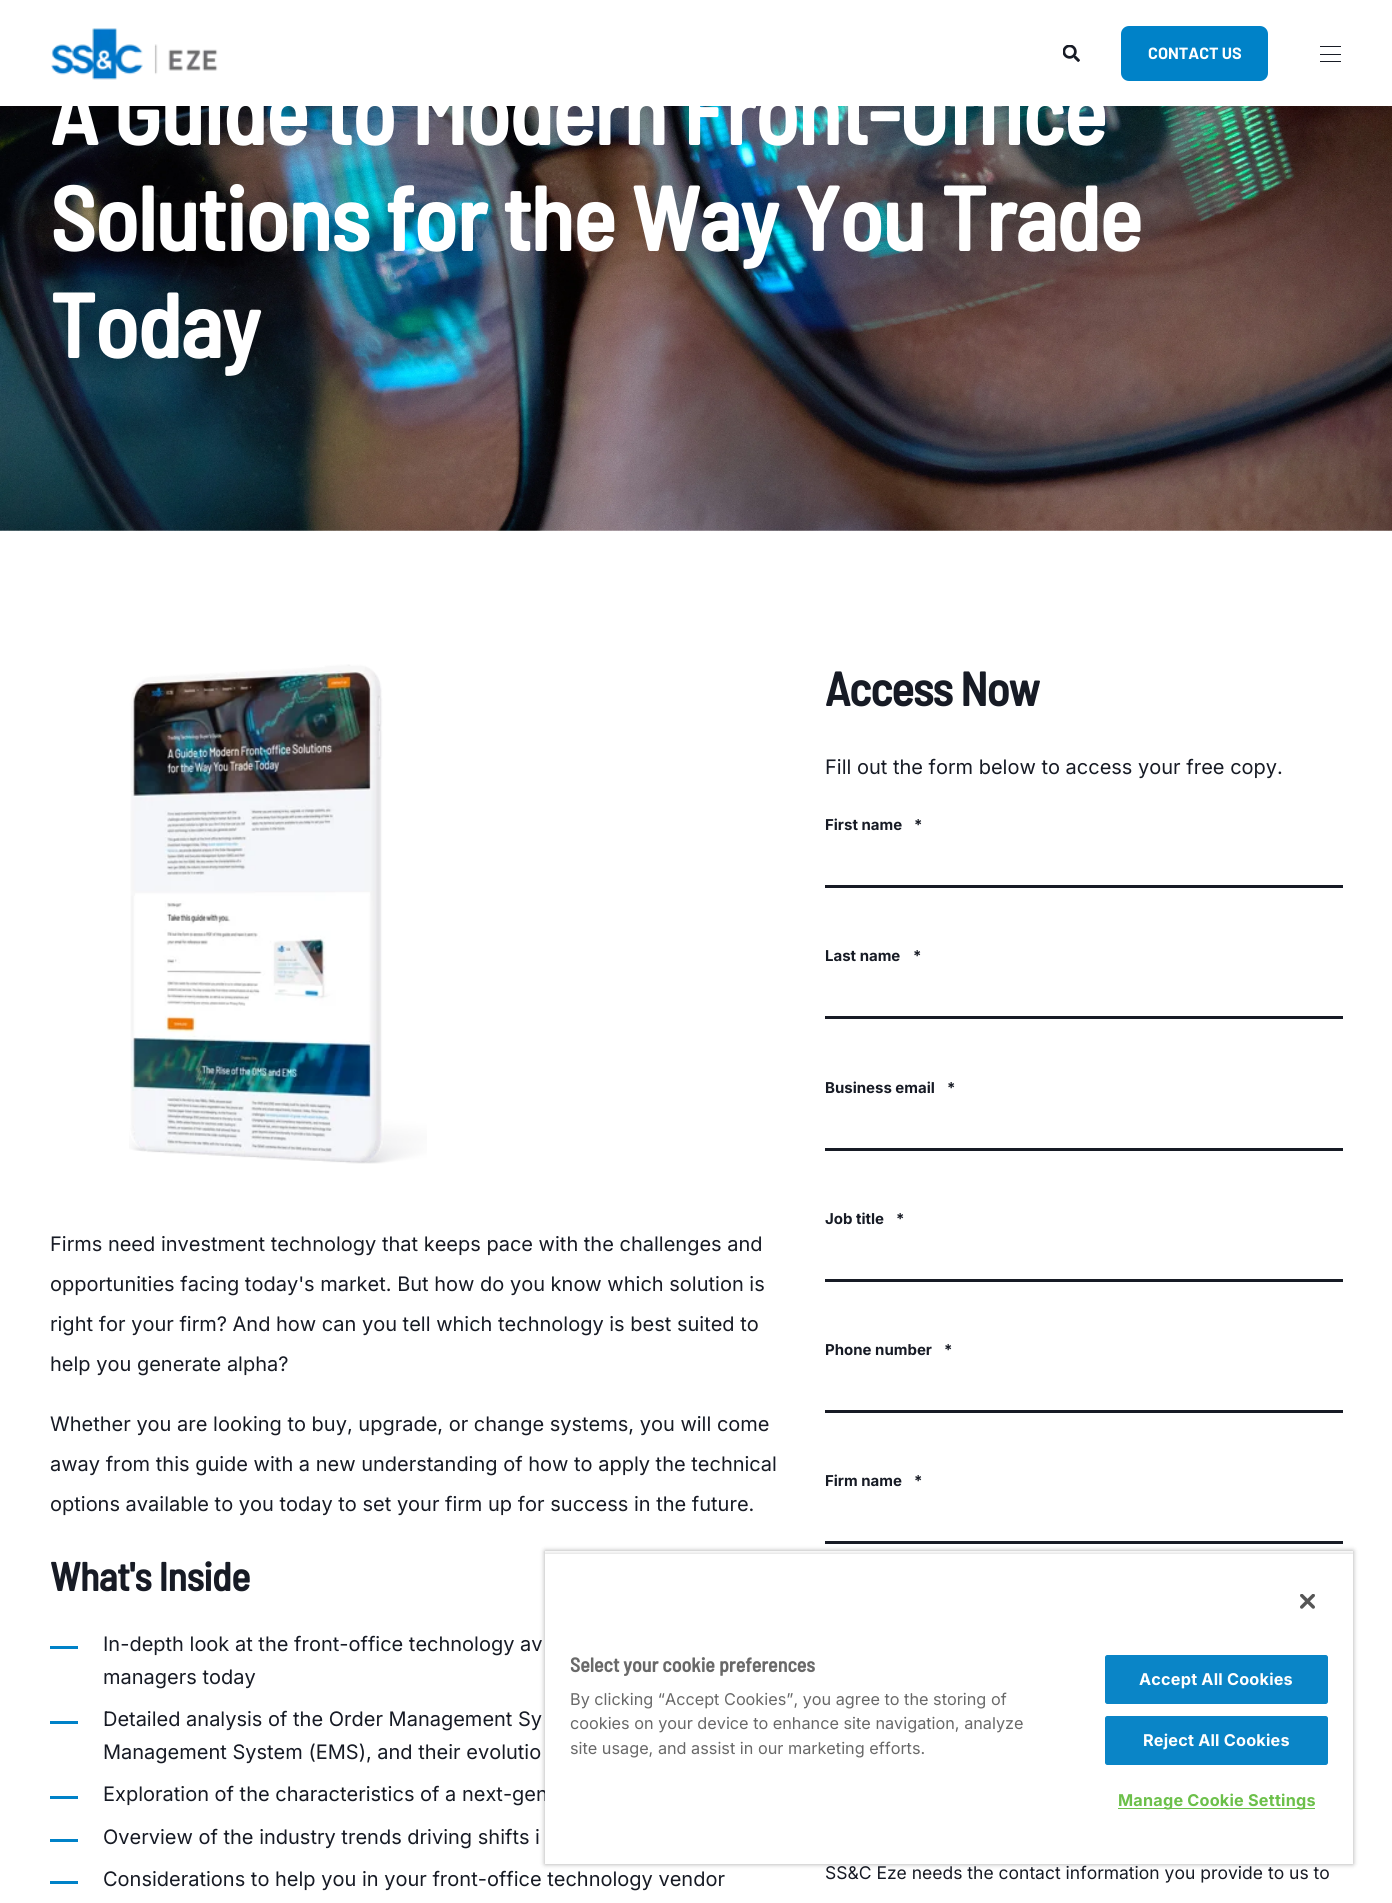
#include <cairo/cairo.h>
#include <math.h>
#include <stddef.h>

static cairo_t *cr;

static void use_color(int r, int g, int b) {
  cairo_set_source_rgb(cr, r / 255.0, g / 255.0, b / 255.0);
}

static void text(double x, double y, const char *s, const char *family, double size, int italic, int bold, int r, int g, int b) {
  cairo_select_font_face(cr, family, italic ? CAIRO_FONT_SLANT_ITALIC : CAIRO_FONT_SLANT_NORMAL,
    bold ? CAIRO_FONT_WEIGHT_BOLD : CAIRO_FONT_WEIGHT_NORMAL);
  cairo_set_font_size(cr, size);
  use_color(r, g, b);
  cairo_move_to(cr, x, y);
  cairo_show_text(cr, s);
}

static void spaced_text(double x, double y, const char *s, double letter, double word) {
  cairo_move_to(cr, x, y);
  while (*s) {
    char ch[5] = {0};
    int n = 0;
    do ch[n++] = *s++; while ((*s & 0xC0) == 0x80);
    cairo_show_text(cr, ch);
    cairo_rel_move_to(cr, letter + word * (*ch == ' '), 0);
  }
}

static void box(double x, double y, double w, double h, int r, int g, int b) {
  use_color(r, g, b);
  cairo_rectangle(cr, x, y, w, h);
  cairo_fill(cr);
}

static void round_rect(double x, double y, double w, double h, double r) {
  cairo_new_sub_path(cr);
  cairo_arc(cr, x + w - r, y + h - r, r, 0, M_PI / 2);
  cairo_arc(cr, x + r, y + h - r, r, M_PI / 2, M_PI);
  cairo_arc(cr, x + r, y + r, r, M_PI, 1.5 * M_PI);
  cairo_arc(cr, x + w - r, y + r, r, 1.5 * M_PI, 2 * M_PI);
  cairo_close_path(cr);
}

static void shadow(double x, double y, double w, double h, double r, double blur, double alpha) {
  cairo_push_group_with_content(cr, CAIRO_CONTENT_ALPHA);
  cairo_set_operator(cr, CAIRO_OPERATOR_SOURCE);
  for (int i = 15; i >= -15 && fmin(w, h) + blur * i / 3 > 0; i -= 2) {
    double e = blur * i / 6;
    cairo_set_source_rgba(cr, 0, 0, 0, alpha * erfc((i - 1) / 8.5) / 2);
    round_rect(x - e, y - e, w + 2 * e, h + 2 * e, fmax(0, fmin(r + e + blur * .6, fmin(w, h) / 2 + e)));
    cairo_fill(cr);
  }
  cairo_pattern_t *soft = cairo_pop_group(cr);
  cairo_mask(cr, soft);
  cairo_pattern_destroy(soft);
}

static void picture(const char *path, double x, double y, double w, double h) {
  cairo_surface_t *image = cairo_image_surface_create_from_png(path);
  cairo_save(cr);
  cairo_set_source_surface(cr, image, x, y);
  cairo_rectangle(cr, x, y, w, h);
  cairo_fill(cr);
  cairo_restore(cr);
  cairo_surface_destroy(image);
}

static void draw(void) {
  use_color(255, 255, 255);
  cairo_paint(cr);
  picture("img_03.png", 0, 106, 1392, 425);
  use_color(0, 0, 0);
  shadow(-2, 4, 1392, 106, 0, 3, 0.1);
  box(0, 0, 1392, 106, 255, 255, 255);
  picture("img_01.png", 51, 28, 167, 52);
  picture("img_02.png", 1063, 45, 17, 17);
  use_color(0, 130, 200);
  round_rect(1121, 26, 147, 55, 8);
  cairo_fill(cr);
  box(1320, 46, 21, 1, 23, 27, 37);
  box(1320, 54, 21, 1, 23, 27, 37);
  box(1320, 61, 21, 1, 23, 27, 37);
  picture("img_04.png", 129, 664, 298, 500);
  box(50, 1646, 28, 3, 0, 130, 200);
  box(50, 1721, 28, 3, 0, 130, 200);
  box(50, 1796, 28, 3, 0, 130, 200);
  box(50, 1839, 28, 3, 0, 130, 200);
  box(50, 1881, 28, 3, 0, 130, 200);
  box(825, 885, 518, 3, 23, 27, 37);
  box(825, 1016, 518, 3, 23, 27, 37);
  box(825, 1148, 518, 3, 23, 27, 37);
  box(825, 1279, 518, 3, 23, 27, 37);
  box(825, 1410, 518, 3, 23, 27, 37);
  box(825, 1541, 518, 3, 23, 27, 37);
  cairo_save(cr);
  cairo_set_fill_rule(cr, CAIRO_FILL_RULE_EVEN_ODD);
  cairo_new_path(cr);
  cairo_move_to(cr, 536, 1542);
  cairo_line_to(cr, 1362, 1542);
  cairo_line_to(cr, 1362, 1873);
  cairo_line_to(cr, 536, 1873);
  cairo_close_path(cr);
  cairo_move_to(cr, 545, 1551);
  cairo_line_to(cr, 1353, 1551);
  cairo_line_to(cr, 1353, 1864);
  cairo_line_to(cr, 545, 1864);
  cairo_close_path(cr);
  cairo_clip(cr);
  use_color(0, 0, 0);
  shadow(545, 1551, 808, 313, 0, 2.5, 0.35);
  cairo_restore(cr);
  cairo_save(cr);
  cairo_rectangle(cr, 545, 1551, 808, 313);
  cairo_clip(cr);
  use_color(0, 0, 0);
  shadow(545, 1554, 808, 310, 0, 2.5, 0.2);
  cairo_restore(cr);
  text(1148, 59, "CONTACT US", "Barlow", 16.25, 0, 1, 255, 255, 255);
  cairo_select_font_face(cr, "Barlow Semi Condensed", CAIRO_FONT_SLANT_NORMAL, CAIRO_FONT_WEIGHT_BOLD);
  cairo_set_font_size(cr, 90);
  spaced_text(50, 145, "A Guide to Modern Front-Office", -1.25, 0);
  spaced_text(50, 251, "Solutions for the Way You Trade", -1.25, 0);
  spaced_text(50, 358, "Today", -1.25, 0);
  text(50, 1251, "Firms need investment technology that keeps pace with the challenges and", "Inter", 20, 0, 0, 23, 27, 37);
  text(50, 1291, "opportunities facing today's market. But how do you know which solution is", "Inter", 20, 0, 0, 23, 27, 37);
  text(50, 1331, "right for your firm? And how can you tell which technology is best suited to", "Inter", 20, 0, 0, 23, 27, 37);
  text(50, 1371, "help you generate alpha?", "Inter", 20, 0, 0, 23, 27, 37);
  text(50, 1431, "Whether you are looking to buy, upgrade, or change systems, you will come", "Inter", 20, 0, 0, 23, 27, 37);
  text(50, 1471, "away from this guide with a new understanding of how to apply the technical", "Inter", 20, 0, 0, 23, 27, 37);
  text(50, 1511, "options available to you today to set your firm up for success in the future.", "Inter", 20, 0, 0, 23, 27, 37);
  cairo_select_font_face(cr, "Barlow Semi Condensed", CAIRO_FONT_SLANT_NORMAL, CAIRO_FONT_WEIGHT_BOLD);
  cairo_set_font_size(cr, 40);
  spaced_text(50, 1591, "What's Inside", -0.6, 0);
  text(103, 1651, "In-depth look at the front-office technology av", "Inter", 20, 0, 0, 23, 27, 37);
  text(103, 1684, "managers today", "Inter", 20, 0, 0, 23, 27, 37);
  text(103, 1726, "Detailed analysis of the Order Management Sy", "Inter", 20, 0, 0, 23, 27, 37);
  text(103, 1759, "Management System (EMS), and their evolutio", "Inter", 20, 0, 0, 23, 27, 37);
  text(103, 1801, "Exploration of the characteristics of a next-gen", "Inter", 20, 0, 0, 23, 27, 37);
  text(103, 1844, "Overview of the industry trends driving shifts i", "Inter", 20, 0, 0, 23, 27, 37);
  text(103, 1886, "Considerations to help you in your front-office technology vendor", "Inter", 20, 0, 0, 23, 27, 37);
  cairo_select_font_face(cr, "Barlow Semi Condensed", CAIRO_FONT_SLANT_NORMAL, CAIRO_FONT_WEIGHT_BOLD);
  cairo_set_font_size(cr, 47.5);
  spaced_text(825, 706, "Access Now", -1.25, 0);
  text(825, 774, "Fill out the form below to access your free copy.", "Inter", 20, 0, 0, 23, 27, 37);
  text(825, 830, "First name", "Inter", 15, 0, 1, 23, 27, 37);
  text(914, 830, "*", "Inter", 15, 0, 1, 23, 27, 37);
  text(825, 961, "Last name", "Inter", 15, 0, 1, 23, 27, 37);
  text(913, 961, "*", "Inter", 15, 0, 1, 23, 27, 37);
  text(825, 1093, "Business email", "Inter", 15, 0, 1, 23, 27, 37);
  text(947, 1093, "*", "Inter", 15, 0, 1, 23, 27, 37);
  text(825, 1224, "Job title", "Inter", 15, 0, 1, 23, 27, 37);
  text(896, 1224, "*", "Inter", 15, 0, 1, 23, 27, 37);
  text(825, 1355, "Phone number", "Inter", 15, 0, 1, 23, 27, 37);
  text(944, 1355, "*", "Inter", 15, 0, 1, 23, 27, 37);
  text(825, 1486, "Firm name", "Inter", 15, 0, 1, 23, 27, 37);
  text(914, 1486, "*", "Inter", 15, 0, 1, 23, 27, 37);
  text(825, 1879, "SS&C Eze needs the contact information you provide to us to", "Inter", 17.5, 0, 0, 23, 27, 37);
  box(545, 1554, 808, 310, 255, 255, 255);
  picture("img_05.png", 1300, 1594, 15, 15);
  text(570, 1672, "Select your cookie preferences", "Barlow Semi Condensed", 20, 0, 1, 105, 105, 105);
  text(570, 1705, "By clicking “Accept Cookies”, you agree to the storing of", "Inter", 16.25, 0, 0, 105, 105, 105);
  text(570, 1729, "cookies on your device to enhance site navigation, analyze", "Inter", 16.25, 0, 0, 105, 105, 105);
  text(570, 1754, "site usage, and assist in our marketing efforts.", "Inter", 16.25, 0, 0, 105, 105, 105);
  use_color(10, 133, 199);
  round_rect(1105.5, 1655.5, 222, 48, 2);
  cairo_fill_preserve(cr);
  cairo_set_line_width(cr, 1);
  cairo_stroke(cr);
  cairo_select_font_face(cr, "Inter", CAIRO_FONT_SLANT_NORMAL, CAIRO_FONT_WEIGHT_BOLD);
  use_color(255, 255, 255);
  spaced_text(1139, 1685, "Accept All Cookies", 0.2, 0);
  use_color(10, 133, 199);
  round_rect(1105.5, 1716.5, 222, 48, 2);
  cairo_fill_preserve(cr);
  cairo_stroke(cr);
  use_color(255, 255, 255);
  spaced_text(1143, 1746, "Reject All Cookies", 0.2, 0);
  box(1118, 1808, 197, 1, 108, 192, 74);
  spaced_text(1118, 1806, "Manage Cookie Settings", 0.2, 0);
}

int main(void) {
  cairo_surface_t *surface = cairo_image_surface_create(CAIRO_FORMAT_RGB24, 1392, 1903);
  cr = cairo_create(surface);
  cairo_font_options_t *options = cairo_font_options_create();
  cairo_font_options_set_hint_metrics(options, CAIRO_HINT_METRICS_OFF);
  cairo_font_options_set_hint_style(options, CAIRO_HINT_STYLE_NONE);
  cairo_set_font_options(cr, options);
  cairo_set_miter_limit(cr, 4);
  draw();
  cairo_surface_write_to_png(surface, "out.png");
  cairo_font_options_destroy(options);
  cairo_destroy(cr);
  cairo_surface_destroy(surface);
  return 0;
}
